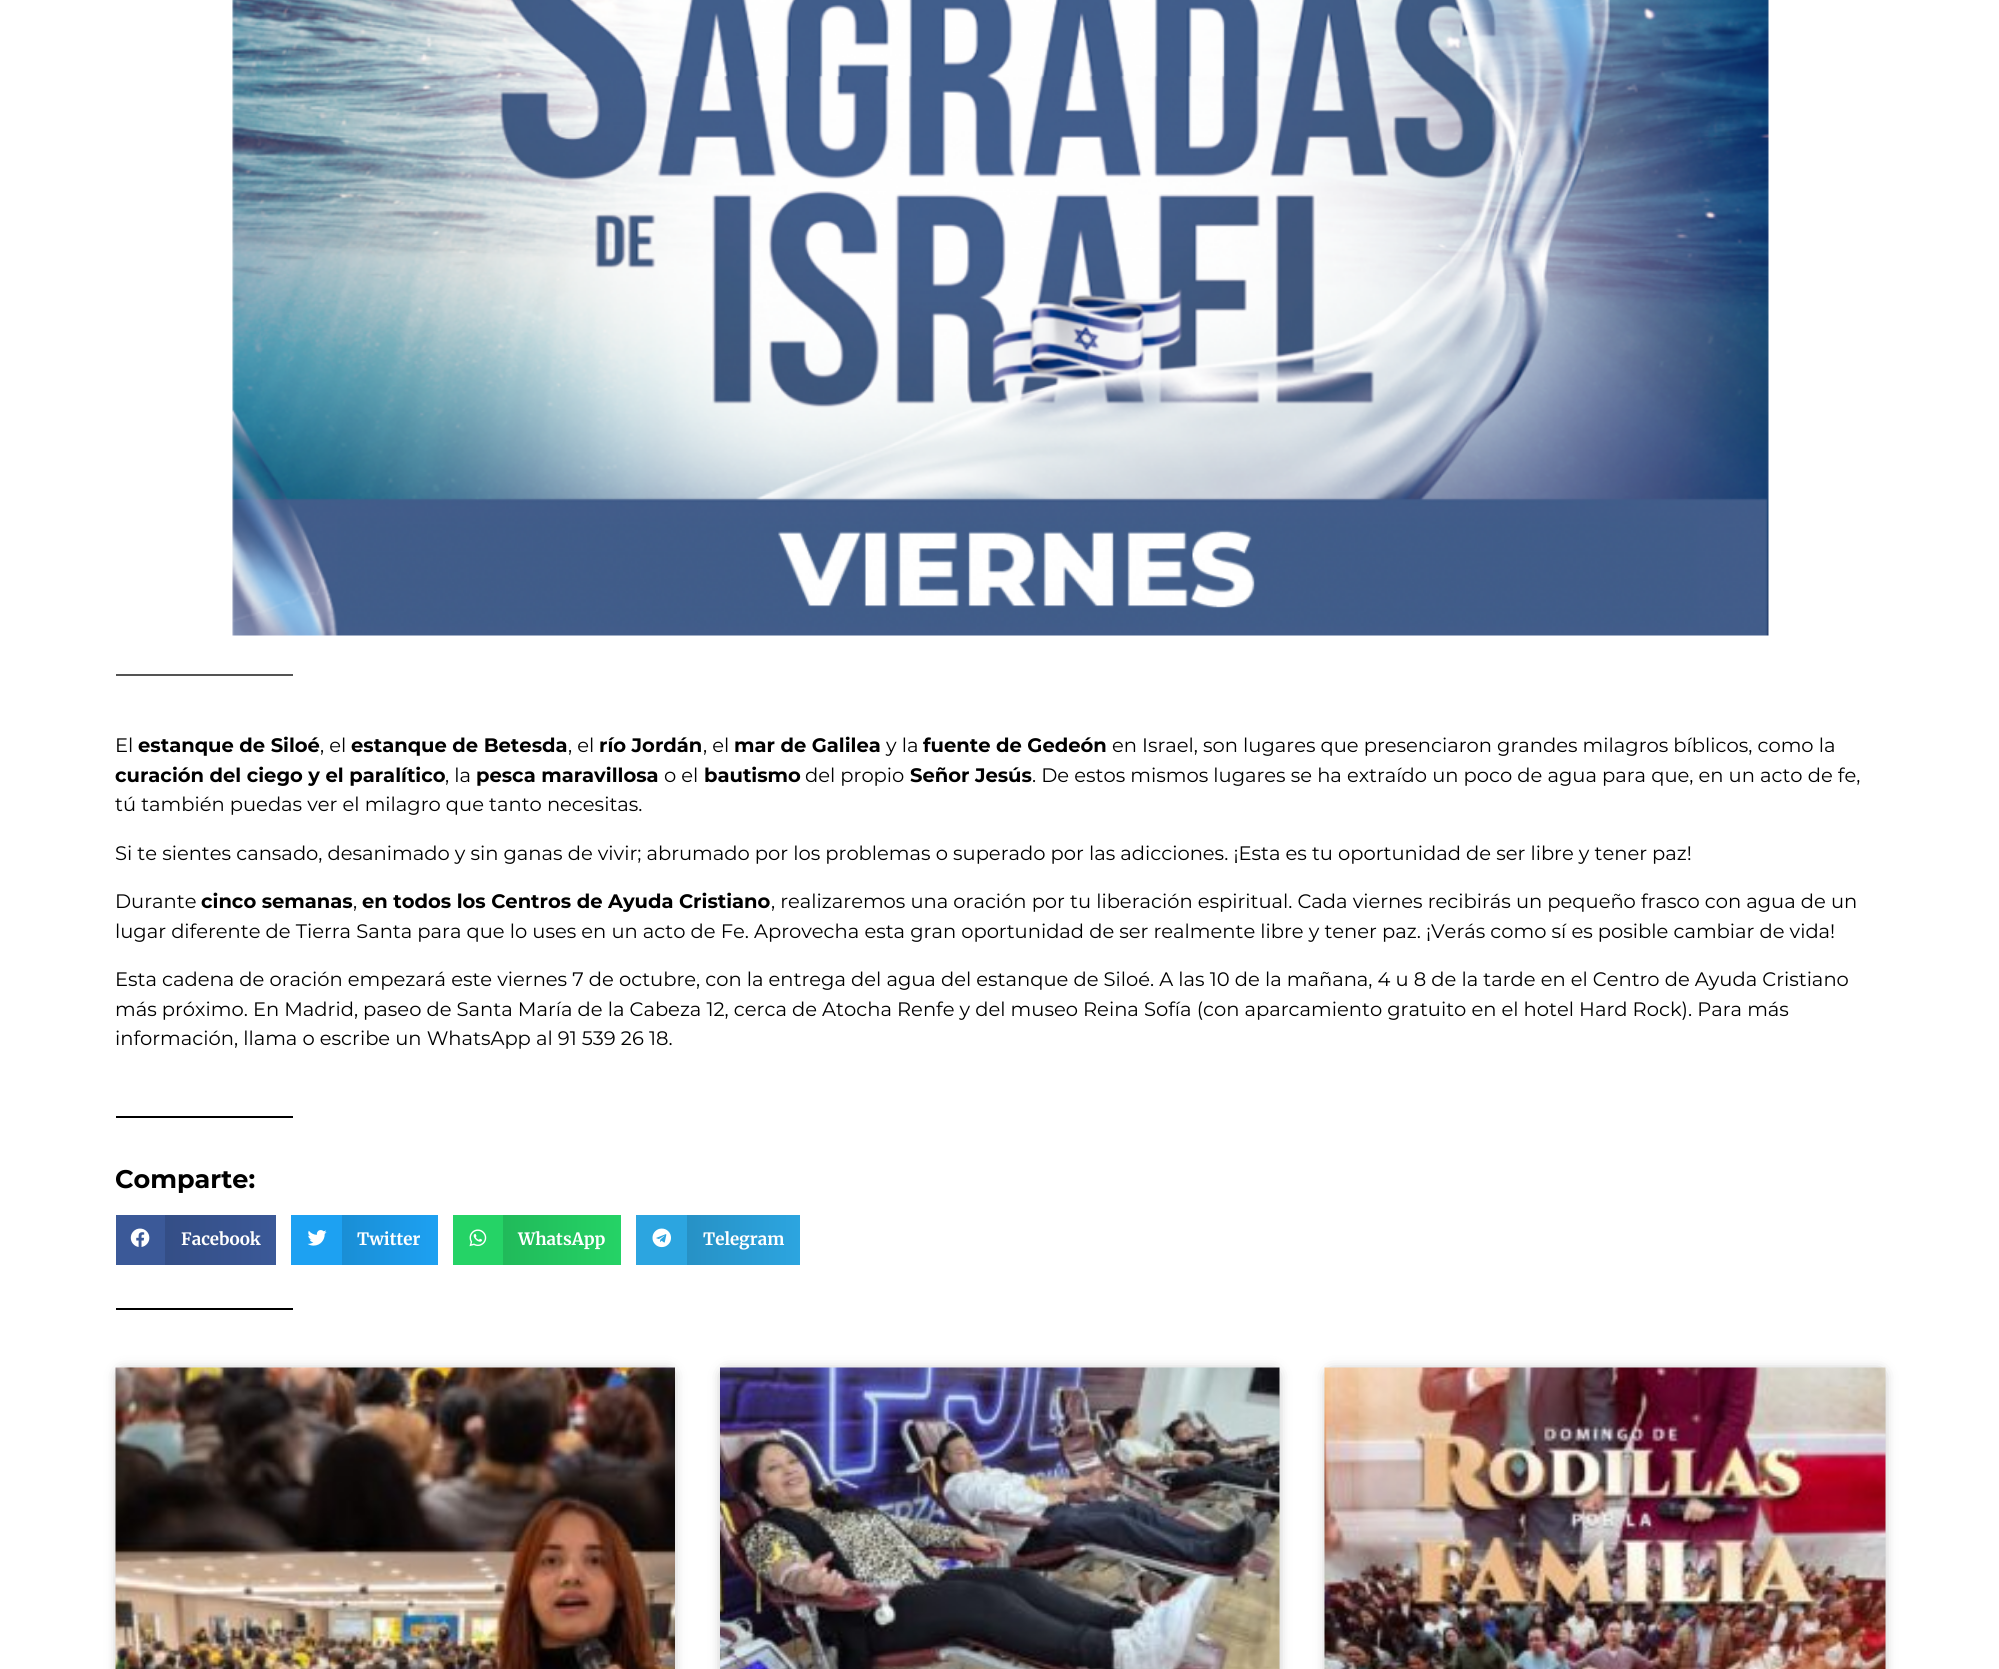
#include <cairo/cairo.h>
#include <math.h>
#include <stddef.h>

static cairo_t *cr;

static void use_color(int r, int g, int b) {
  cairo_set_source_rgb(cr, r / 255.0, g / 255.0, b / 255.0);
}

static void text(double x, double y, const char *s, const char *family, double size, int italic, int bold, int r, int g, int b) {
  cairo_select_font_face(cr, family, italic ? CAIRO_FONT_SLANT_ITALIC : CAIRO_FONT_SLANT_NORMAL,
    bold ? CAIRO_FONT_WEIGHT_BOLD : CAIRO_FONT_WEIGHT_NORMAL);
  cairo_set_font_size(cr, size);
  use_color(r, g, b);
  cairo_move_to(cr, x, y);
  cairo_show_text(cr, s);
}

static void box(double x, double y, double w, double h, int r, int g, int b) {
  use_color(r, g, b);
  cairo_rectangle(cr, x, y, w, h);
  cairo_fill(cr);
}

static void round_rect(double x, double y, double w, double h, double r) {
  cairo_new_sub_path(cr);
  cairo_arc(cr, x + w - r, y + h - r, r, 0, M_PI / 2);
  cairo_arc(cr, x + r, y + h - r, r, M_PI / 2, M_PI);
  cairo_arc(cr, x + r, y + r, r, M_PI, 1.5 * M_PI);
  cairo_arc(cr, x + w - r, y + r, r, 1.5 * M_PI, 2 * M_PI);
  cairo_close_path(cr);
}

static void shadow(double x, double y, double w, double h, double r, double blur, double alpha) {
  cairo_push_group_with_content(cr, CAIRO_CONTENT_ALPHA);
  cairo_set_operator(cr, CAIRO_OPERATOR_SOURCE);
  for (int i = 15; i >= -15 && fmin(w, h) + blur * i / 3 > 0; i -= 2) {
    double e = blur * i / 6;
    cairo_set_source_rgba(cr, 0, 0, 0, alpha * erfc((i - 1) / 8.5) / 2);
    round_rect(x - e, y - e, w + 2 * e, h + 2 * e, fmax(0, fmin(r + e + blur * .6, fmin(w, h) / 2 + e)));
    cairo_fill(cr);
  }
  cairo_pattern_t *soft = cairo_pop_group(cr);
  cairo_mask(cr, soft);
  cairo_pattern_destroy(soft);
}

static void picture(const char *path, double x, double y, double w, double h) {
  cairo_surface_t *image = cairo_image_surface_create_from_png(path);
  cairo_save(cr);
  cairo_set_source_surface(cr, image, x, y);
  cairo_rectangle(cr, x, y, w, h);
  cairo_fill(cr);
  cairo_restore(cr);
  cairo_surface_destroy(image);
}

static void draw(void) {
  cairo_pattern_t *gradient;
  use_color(255, 255, 255);
  cairo_paint(cr);
  picture("img_01.png", 232, 0, 1537, 636);
  box(116, 674, 177, 2, 84, 84, 84);
  box(116, 1116, 177, 2, 0, 0, 0);
  box(116, 1215, 49, 50, 59, 89, 152);
  picture("img_02.png", 130, 1228, 20, 19);
  gradient = cairo_pattern_create_linear(165, 1240, 276, 1240);
  cairo_pattern_add_color_stop_rgba(gradient, 0, 0.204, 0.306, 0.525, 1);
  cairo_pattern_add_color_stop_rgba(gradient, 1, 0.231, 0.349, 0.596, 1);
  cairo_set_source(cr, gradient);
  cairo_pattern_destroy(gradient);
  cairo_rectangle(cr, 165, 1215, 111, 50);
  cairo_fill(cr);
  box(291, 1215, 51, 50, 29, 161, 242);
  picture("img_03.png", 307, 1230, 20, 16);
  gradient = cairo_pattern_create_linear(342, 1240, 438, 1240);
  cairo_pattern_add_color_stop_rgba(gradient, 0, 0.102, 0.557, 0.835, 1);
  cairo_pattern_add_color_stop_rgba(gradient, 1, 0.114, 0.631, 0.949, 1);
  cairo_set_source(cr, gradient);
  cairo_pattern_destroy(gradient);
  cairo_rectangle(cr, 342, 1215, 96, 50);
  cairo_fill(cr);
  box(453, 1215, 50, 50, 37, 211, 102);
  picture("img_04.png", 469, 1229, 18, 18);
  gradient = cairo_pattern_create_linear(503, 1240, 621, 1240);
  cairo_pattern_add_color_stop_rgba(gradient, 0, 0.129, 0.729, 0.353, 1);
  cairo_pattern_add_color_stop_rgba(gradient, 1, 0.145, 0.827, 0.4, 1);
  cairo_set_source(cr, gradient);
  cairo_pattern_destroy(gradient);
  cairo_rectangle(cr, 503, 1215, 118, 50);
  cairo_fill(cr);
  box(636, 1215, 51, 50, 44, 165, 224);
  picture("img_05.png", 652, 1228, 19, 20);
  gradient = cairo_pattern_create_linear(687, 1240, 800, 1240);
  cairo_pattern_add_color_stop_rgba(gradient, 0, 0.153, 0.569, 0.773, 1);
  cairo_pattern_add_color_stop_rgba(gradient, 1, 0.173, 0.647, 0.878, 1);
  cairo_set_source(cr, gradient);
  cairo_pattern_destroy(gradient);
  cairo_rectangle(cr, 687, 1215, 113, 50);
  cairo_fill(cr);
  box(116, 1308, 177, 2, 0, 0, 0);
  use_color(0, 0, 0);
  shadow(122, 1374, 547, 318, 0, 7.5, 0.5);
  picture("img_06.png", 115, 1367, 560, 302);
  shadow(726, 1374, 548, 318, 0, 7.5, 0.5);
  picture("img_07.png", 720, 1367, 560, 302);
  shadow(1331, 1374, 549, 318, 0, 7.5, 0.5);
  picture("img_08.png", 1324, 1367, 562, 302);
  text(115, 752, "El", "Montserrat", 19.5, 0, 0, 0, 0, 0);
  text(138, 752, "estanque de Siloé", "Montserrat", 19.5, 0, 1, 0, 0, 0);
  text(320, 752, ", el", "Montserrat", 19.5, 0, 0, 0, 0, 0);
  text(351, 752, "estanque de Betesda", "Montserrat", 19.5, 0, 1, 0, 0, 0);
  text(568, 752, ", el", "Montserrat", 19.5, 0, 0, 0, 0, 0);
  text(599, 752, "río Jordán", "Montserrat", 19.5, 0, 1, 0, 0, 0);
  text(703, 752, ", el", "Montserrat", 19.5, 0, 0, 0, 0, 0);
  text(734, 752, "mar de Galilea", "Montserrat", 19.5, 0, 1, 0, 0, 0);
  text(886, 752, "y la", "Montserrat", 19.5, 0, 0, 0, 0, 0);
  text(923, 752, "fuente de Gedeón", "Montserrat", 19.5, 0, 1, 0, 0, 0);
  text(1112, 752, "en Israel, son lugares que presenciaron grandes milagros bíblicos, como la", "Montserrat", 19.5, 0, 0, 0, 0, 0);
  text(115, 782, "curación del ciego y el paralítico", "Montserrat", 19.5, 0, 1, 0, 0, 0);
  text(445, 782, ", la", "Montserrat", 19.5, 0, 0, 0, 0, 0);
  text(476, 782, "pesca maravillosa", "Montserrat", 19.5, 0, 1, 0, 0, 0);
  text(664, 782, "o el", "Montserrat", 19.5, 0, 0, 0, 0, 0);
  text(704, 782, "bautismo", "Montserrat", 19.5, 0, 1, 0, 0, 0);
  text(805, 782, "del propio", "Montserrat", 19.5, 0, 0, 0, 0, 0);
  text(910, 782, "Señor Jesús", "Montserrat", 19.5, 0, 1, 0, 0, 0);
  text(1032, 782, ". De estos mismos lugares se ha extraído un poco de agua para que, en un acto de fe,", "Montserrat", 19.5, 0, 0, 0, 0, 0);
  text(115, 811, "tú también puedas ver el milagro que tanto necesitas.", "Montserrat", 19.5, 0, 0, 0, 0, 0);
  text(115, 860, "Si te sientes cansado, desanimado y sin ganas de vivir; abrumado por los problemas o superado por las adicciones. ¡Esta es tu oportunidad de ser libre y tener paz!", "Montserrat", 19.5, 0, 0, 0, 0, 0);
  text(115, 908, "Durante", "Montserrat", 19.5, 0, 0, 0, 0, 0);
  text(201, 908, "cinco semanas", "Montserrat", 19.5, 0, 1, 0, 0, 0);
  text(353, 908, ",", "Montserrat", 19.5, 0, 0, 0, 0, 0);
  text(362, 908, "en todos los Centros de Ayuda Cristiano", "Montserrat", 19.5, 0, 1, 0, 0, 0);
  text(771, 908, ", realizaremos una oración por tu liberación espiritual. Cada viernes recibirás un pequeño frasco con agua de un", "Montserrat", 19.5, 0, 0, 0, 0, 0);
  text(115, 938, "lugar diferente de Tierra Santa para que lo uses en un acto de Fe. Aprovecha esta gran oportunidad de ser realmente libre y tener paz. ¡Verás como sí es posible cambiar de vida!", "Montserrat", 19.5, 0, 0, 0, 0, 0);
  text(115, 986, "Esta cadena de oración empezará este viernes 7 de octubre, con la entrega del agua del estanque de Siloé. A las 10 de la mañana, 4 u 8 de la tarde en el Centro de Ayuda Cristiano", "Montserrat", 19.5, 0, 0, 0, 0, 0);
  text(115, 1016, "más próximo. En Madrid, paseo de Santa María de la Cabeza 12, cerca de Atocha Renfe y del museo Reina Sofía (con aparcamiento gratuito en el hotel Hard Rock). Para más", "Montserrat", 19.5, 0, 0, 0, 0, 0);
  text(115, 1045, "información, llama o escribe un WhatsApp al 91 539 26 18.", "Montserrat", 19.5, 0, 0, 0, 0, 0);
  text(115, 1188, "Comparte:", "Montserrat", 25.5, 0, 1, 0, 0, 0);
  text(181, 1245, "Facebook", "Merriweather", 17, 0, 1, 255, 255, 255);
  text(357, 1245, "Twitter", "Merriweather", 17, 0, 1, 255, 255, 255);
  text(518, 1245, "WhatsApp", "Merriweather", 17, 0, 1, 255, 255, 255);
  text(703, 1245, "Telegram", "Merriweather", 17, 0, 1, 255, 255, 255);
}

int main(void) {
  cairo_surface_t *surface = cairo_image_surface_create(CAIRO_FORMAT_RGB24, 1999, 1669);
  cr = cairo_create(surface);
  cairo_font_options_t *options = cairo_font_options_create();
  cairo_font_options_set_hint_metrics(options, CAIRO_HINT_METRICS_OFF);
  cairo_font_options_set_hint_style(options, CAIRO_HINT_STYLE_NONE);
  cairo_set_font_options(cr, options);
  cairo_set_miter_limit(cr, 4);
  draw();
  cairo_surface_write_to_png(surface, "out.png");
  cairo_font_options_destroy(options);
  cairo_destroy(cr);
  cairo_surface_destroy(surface);
  return 0;
}
